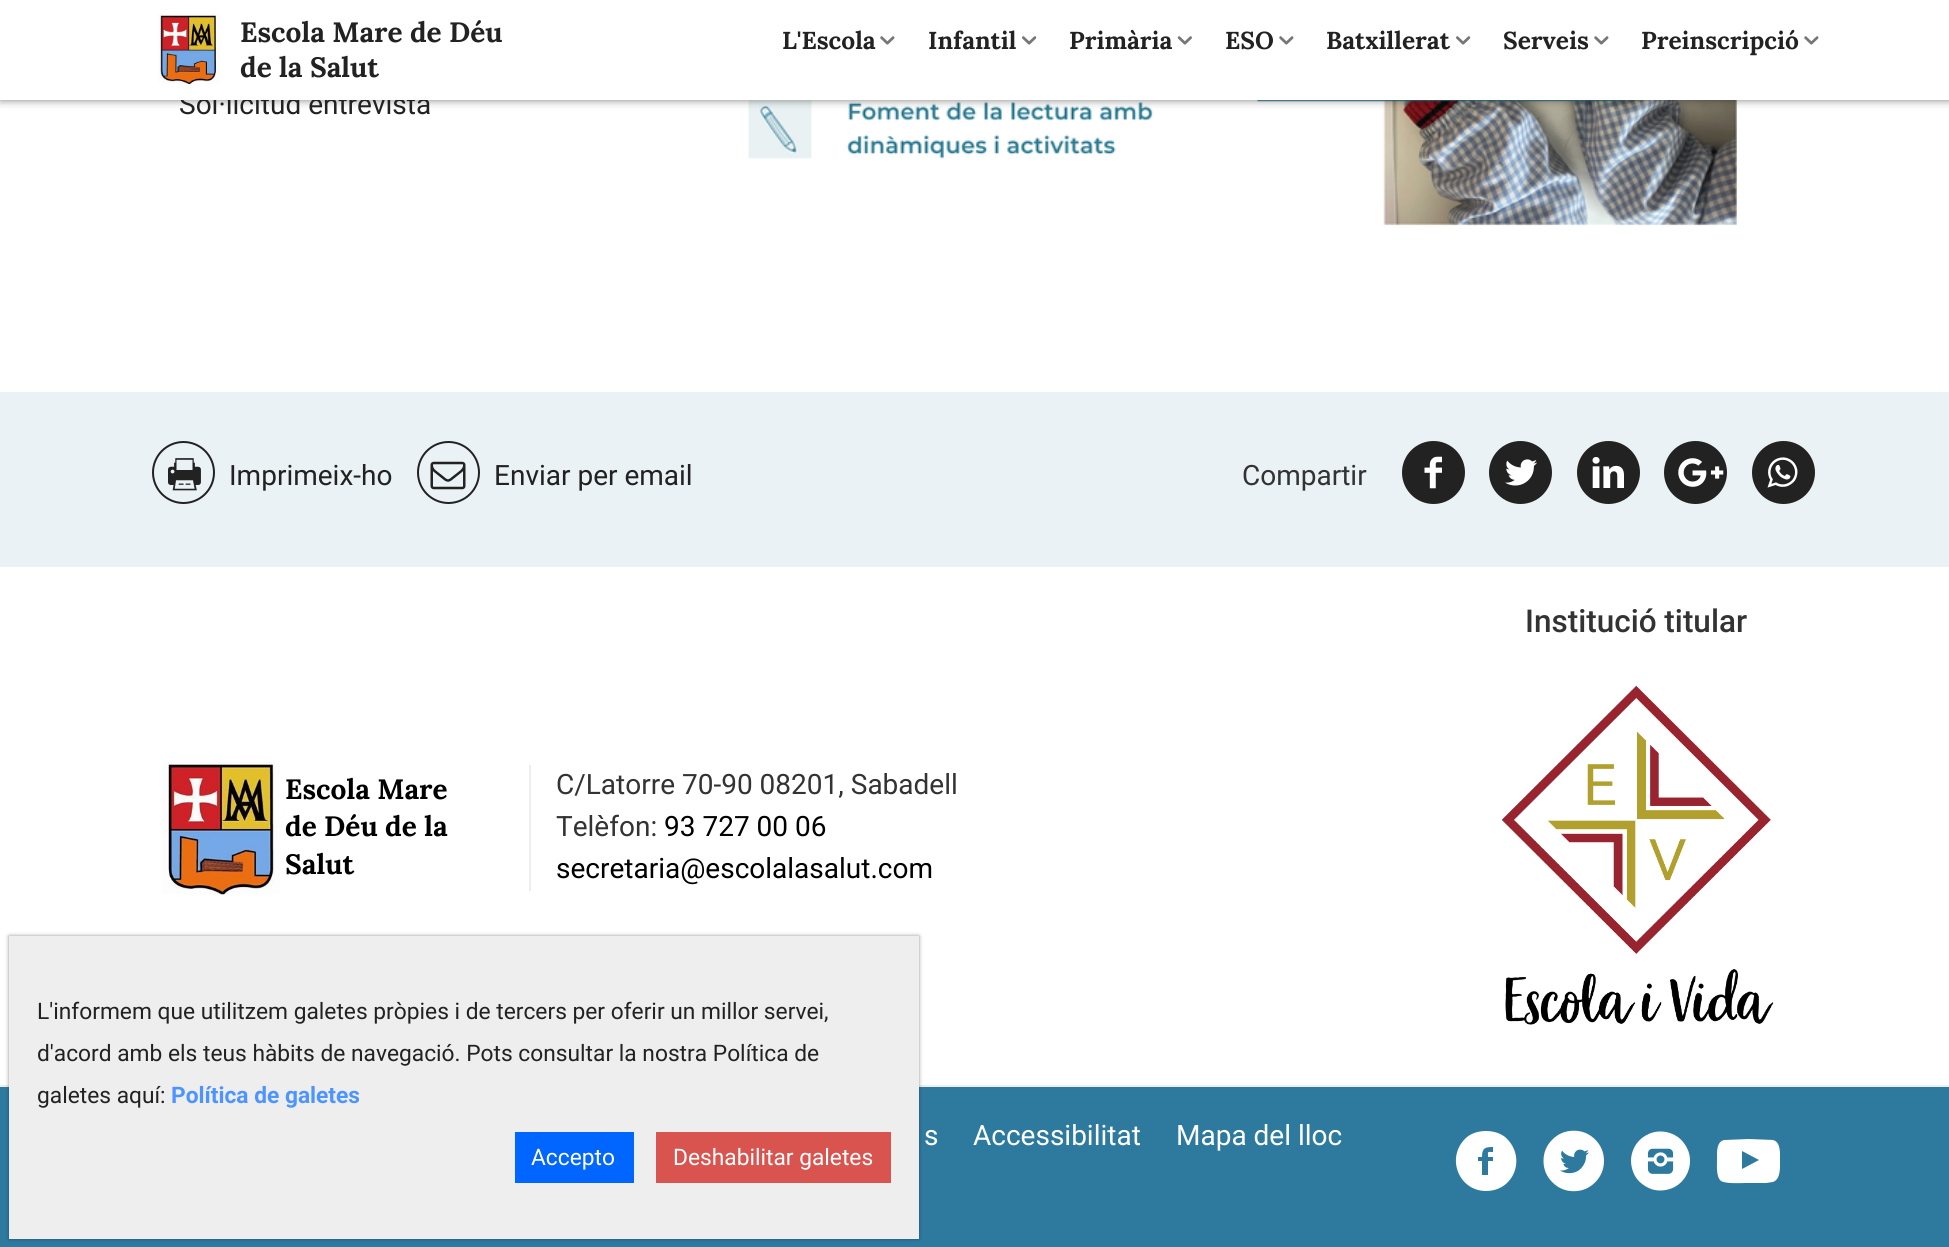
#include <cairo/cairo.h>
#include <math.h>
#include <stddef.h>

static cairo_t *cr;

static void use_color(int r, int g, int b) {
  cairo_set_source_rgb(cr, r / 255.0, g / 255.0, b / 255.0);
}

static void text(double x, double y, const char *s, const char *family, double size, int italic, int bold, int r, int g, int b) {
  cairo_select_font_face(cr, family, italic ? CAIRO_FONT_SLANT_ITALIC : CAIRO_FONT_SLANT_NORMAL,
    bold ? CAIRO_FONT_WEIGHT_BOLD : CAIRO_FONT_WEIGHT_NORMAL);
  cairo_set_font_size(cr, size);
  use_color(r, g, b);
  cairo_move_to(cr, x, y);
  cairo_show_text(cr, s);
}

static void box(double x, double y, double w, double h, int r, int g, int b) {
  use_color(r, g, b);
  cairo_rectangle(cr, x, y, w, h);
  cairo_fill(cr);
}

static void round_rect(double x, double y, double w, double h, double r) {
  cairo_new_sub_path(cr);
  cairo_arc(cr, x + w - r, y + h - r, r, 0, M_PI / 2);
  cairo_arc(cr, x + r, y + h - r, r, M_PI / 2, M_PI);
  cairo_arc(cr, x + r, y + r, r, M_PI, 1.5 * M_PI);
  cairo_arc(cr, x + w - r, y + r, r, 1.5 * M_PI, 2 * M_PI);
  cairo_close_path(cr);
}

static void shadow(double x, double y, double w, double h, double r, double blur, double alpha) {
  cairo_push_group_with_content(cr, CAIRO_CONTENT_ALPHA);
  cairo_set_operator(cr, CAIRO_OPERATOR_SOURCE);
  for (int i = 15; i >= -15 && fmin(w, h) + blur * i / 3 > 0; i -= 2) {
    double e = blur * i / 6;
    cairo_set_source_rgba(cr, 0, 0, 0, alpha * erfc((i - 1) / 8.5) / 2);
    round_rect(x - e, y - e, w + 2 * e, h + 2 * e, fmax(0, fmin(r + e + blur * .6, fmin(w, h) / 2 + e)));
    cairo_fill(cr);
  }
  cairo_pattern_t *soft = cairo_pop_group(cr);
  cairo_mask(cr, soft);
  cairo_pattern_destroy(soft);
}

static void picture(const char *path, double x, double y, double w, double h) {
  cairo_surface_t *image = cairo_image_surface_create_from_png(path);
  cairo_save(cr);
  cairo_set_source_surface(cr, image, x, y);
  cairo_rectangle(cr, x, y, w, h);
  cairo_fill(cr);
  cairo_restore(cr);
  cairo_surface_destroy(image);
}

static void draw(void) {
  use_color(255, 255, 255);
  cairo_paint(cr);
  picture("img_05.png", 748, 100, 989, 126);
  use_color(0, 0, 0);
  shadow(0, 0, 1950, 100, 0, 4.5, 0.5);
  box(0, 392, 1949, 175, 235, 242, 246);
  cairo_arc(cr, 183.5, 472.5, 30.5, 0, 2 * M_PI);
  use_color(34, 34, 34);
  cairo_stroke(cr);
  picture("img_06.png", 168, 458, 33, 33);
  cairo_arc(cr, 448.5, 472.5, 30.5, 0, 2 * M_PI);
  cairo_stroke(cr);
  picture("img_07.png", 430, 461, 36, 29);
  cairo_arc(cr, 1433.5, 472.5, 31.5, 0, 2 * M_PI);
  cairo_fill(cr);
  picture("img_08.png", 1424, 456, 18, 33);
  cairo_arc(cr, 1520.5, 472.5, 31.5, 0, 2 * M_PI);
  cairo_fill(cr);
  picture("img_09.png", 1505, 459, 32, 27);
  cairo_arc(cr, 1608.5, 472.5, 31.5, 0, 2 * M_PI);
  cairo_fill(cr);
  picture("img_10.png", 1592, 457, 32, 31);
  cairo_arc(cr, 1695.5, 472.5, 31.5, 0, 2 * M_PI);
  cairo_fill(cr);
  picture("img_11.png", 1678, 458, 46, 29);
  cairo_arc(cr, 1783.5, 472.5, 31.5, 0, 2 * M_PI);
  cairo_fill(cr);
  picture("img_12.png", 1767, 457, 31, 31);
  picture("img_13.png", 1501, 685, 273, 340);
  picture("img_14.png", 162, 761, 118, 134);
  box(529, 765, 2, 126, 238, 238, 238);
  box(0, 1087, 1949, 160, 46, 122, 159);
  box(0, 1085, 1949, 2, 238, 238, 238);
  use_color(255, 255, 255);
  cairo_new_path(cr);
  cairo_move_to(cr, 1486, 1131);
  cairo_curve_to(cr, 1493, 1131, 1500, 1133, 1505, 1137);
  cairo_curve_to(cr, 1527, 1156, 1515, 1191, 1486, 1191);
  cairo_curve_to(cr, 1458, 1191, 1445, 1156, 1467, 1137);
  cairo_curve_to(cr, 1472, 1133, 1479, 1131, 1486, 1131);
  cairo_close_path(cr);
  cairo_move_to(cr, 1493, 1152);
  cairo_line_to(cr, 1493, 1147);
  cairo_curve_to(cr, 1485, 1147, 1482, 1148, 1482, 1157);
  cairo_line_to(cr, 1478, 1157);
  cairo_line_to(cr, 1478, 1161);
  cairo_line_to(cr, 1482, 1161);
  cairo_line_to(cr, 1482, 1175);
  cairo_line_to(cr, 1488, 1175);
  cairo_line_to(cr, 1488, 1161);
  cairo_line_to(cr, 1493, 1161);
  cairo_line_to(cr, 1493, 1157);
  cairo_line_to(cr, 1488, 1157);
  cairo_curve_to(cr, 1488, 1151, 1487, 1152, 1493, 1152);
  cairo_close_path(cr);
  cairo_fill(cr);
  picture("img_15.png", 1543, 1130, 61, 62);
  picture("img_16.png", 1631, 1131, 59, 60);
  cairo_new_path(cr);
  cairo_move_to(cr, 1742, 1169);
  cairo_line_to(cr, 1759, 1160);
  cairo_line_to(cr, 1742, 1151);
  cairo_close_path(cr);
  cairo_move_to(cr, 1748, 1139);
  cairo_line_to(cr, 1773, 1140);
  cairo_curve_to(cr, 1781, 1142, 1780, 1154, 1780, 1160);
  cairo_curve_to(cr, 1780, 1167, 1781, 1179, 1773, 1182);
  cairo_line_to(cr, 1766, 1183);
  cairo_line_to(cr, 1746, 1183);
  cairo_curve_to(cr, 1741, 1183, 1726, 1184, 1721, 1181);
  cairo_curve_to(cr, 1716, 1177, 1717, 1166, 1717, 1160);
  cairo_curve_to(cr, 1717, 1153, 1716, 1142, 1724, 1140);
  cairo_close_path(cr);
  cairo_fill(cr);
  use_color(34, 34, 34);
  shadow(9, 936, 910, 303, 0, 2, 0.5);
  box(9, 936, 910, 303, 238, 238, 238);
  box(515, 1132, 119, 51, 0, 102, 255);
  box(656, 1132, 235, 51, 217, 83, 79);
  text(179, 114, "Sol·licitud entrevista", "Roboto", 28, 0, 0, 34, 34, 34);
  box(0, 0, 1949, 100, 255, 255, 255);
  picture("img_02.png", 1804, 36, 15, 9);
  text(1641, 49, "Preinscripció", "Lora", 24.5, 0, 1, 34, 34, 34);
  picture("img_02.png", 1594, 36, 15, 9);
  text(1503, 49, "Serveis", "Lora", 24.5, 0, 1, 34, 34, 34);
  picture("img_03.png", 1456, 36, 15, 9);
  text(1326, 49, "Batxillerat", "Lora", 24.5, 0, 1, 34, 34, 34);
  picture("img_02.png", 1279, 36, 15, 9);
  text(1225, 49, "ESO", "Lora", 24.5, 0, 1, 34, 34, 34);
  picture("img_04.png", 1177, 36, 15, 9);
  text(1069, 49, "Primària", "Lora", 24.5, 0, 1, 34, 34, 34);
  picture("img_03.png", 1022, 36, 15, 9);
  text(928, 49, "Infantil", "Lora", 24.5, 0, 1, 34, 34, 34);
  picture("img_02.png", 880, 36, 15, 9);
  text(782, 49, "L'Escola", "Lora", 24.5, 0, 1, 34, 34, 34);
  text(240, 77, "de la Salut", "Lora", 28, 0, 1, 34, 34, 34);
  text(240, 42, "Escola Mare de Déu", "Lora", 28, 0, 1, 34, 34, 34);
  picture("img_01.png", 158, 14, 62, 70);
  text(229, 485, "Imprimeix-ho", "Roboto", 28, 0, 0, 34, 34, 34);
  text(494, 485, "Enviar per email", "Roboto", 28, 0, 0, 34, 34, 34);
  text(1242, 485, "Compartir", "Roboto", 28, 0, 0, 51, 51, 51);
  text(1525, 632, "Institució titular", "Roboto Medium", 31.5, 0, 0, 51, 51, 51);
  text(285, 799, "Escola Mare", "Lora", 28, 0, 1, 0, 0, 0);
  text(285, 836, "de Déu de la", "Lora", 28, 0, 1, 0, 0, 0);
  text(285, 874, "Salut", "Lora", 28, 0, 1, 0, 0, 0);
  text(556, 794, "C/Latorre 70-90 08201, Sabadell", "Roboto", 28, 0, 0, 51, 51, 51);
  text(556, 836, "Telèfon:", "Roboto", 28, 0, 0, 51, 51, 51);
  text(664, 836, "93 727 00 06", "Roboto", 28, 0, 0, 0, 0, 0);
  text(556, 878, "secretaria@escolalasalut.com", "Roboto", 28, 0, 0, 0, 0, 0);
  text(924, 1145, "s", "Roboto", 28, 0, 0, 255, 255, 255);
  text(973, 1145, "Accessibilitat", "Roboto", 28, 0, 0, 255, 255, 255);
  text(1176, 1145, "Mapa del lloc", "Roboto", 28, 0, 0, 255, 255, 255);
  text(37, 1019, "L'informem que utilitzem galetes pròpies i de tercers per oferir un millor servei,", "Roboto", 22.75, 0, 0, 34, 34, 34);
  text(37, 1061, "d'acord amb els teus hàbits de navegació. Pots consultar la nostra Política de", "Roboto", 22.75, 0, 0, 34, 34, 34);
  text(37, 1103, "galetes aquí:", "Roboto", 22.75, 0, 0, 34, 34, 34);
  text(171, 1103, "Política de galetes", "Roboto", 22.75, 0, 1, 77, 148, 255);
  text(531, 1165, "Accepto", "Roboto", 22.75, 0, 0, 255, 255, 255);
  text(673, 1165, "Deshabilitar galetes", "Roboto", 22.75, 0, 0, 255, 255, 255);
}

int main(void) {
  cairo_surface_t *surface = cairo_image_surface_create(CAIRO_FORMAT_RGB24, 1949, 1247);
  cr = cairo_create(surface);
  cairo_font_options_t *options = cairo_font_options_create();
  cairo_font_options_set_hint_metrics(options, CAIRO_HINT_METRICS_OFF);
  cairo_font_options_set_hint_style(options, CAIRO_HINT_STYLE_NONE);
  cairo_set_font_options(cr, options);
  cairo_set_miter_limit(cr, 4);
  draw();
  cairo_surface_write_to_png(surface, "out.png");
  cairo_font_options_destroy(options);
  cairo_destroy(cr);
  cairo_surface_destroy(surface);
  return 0;
}
